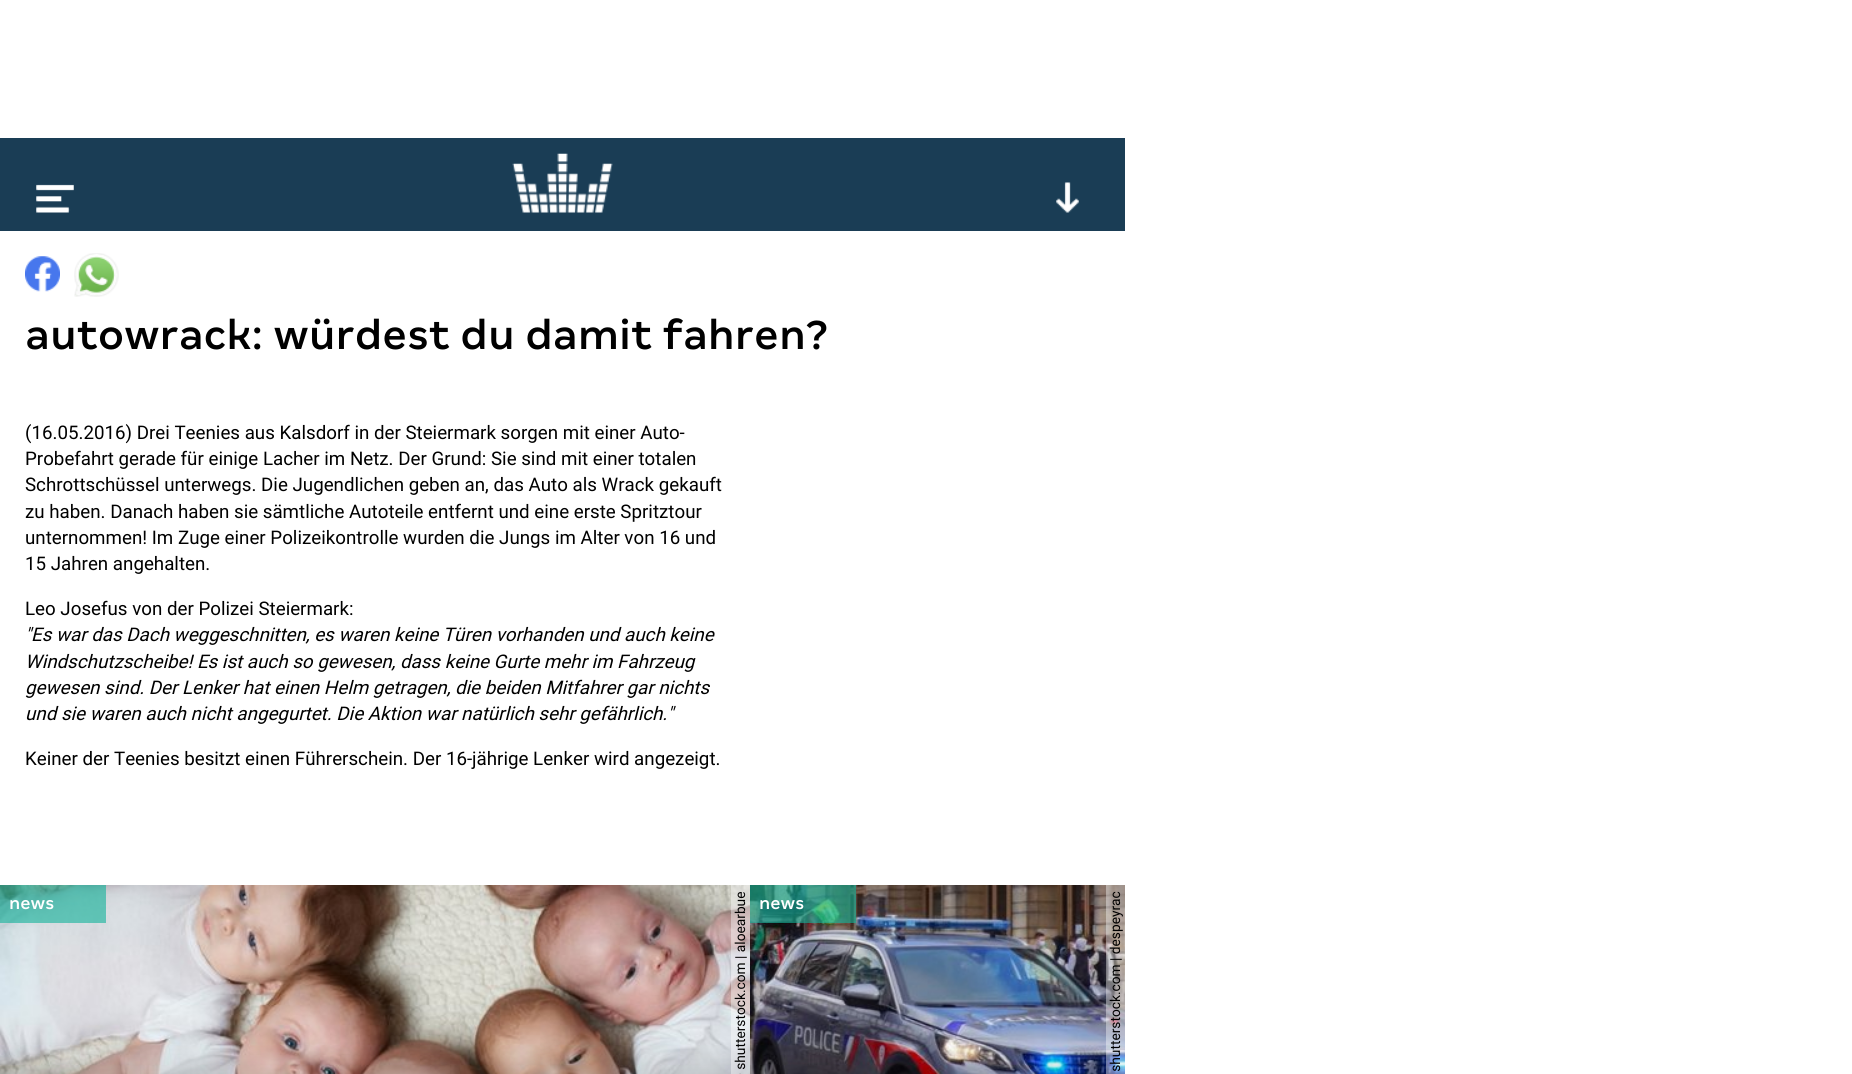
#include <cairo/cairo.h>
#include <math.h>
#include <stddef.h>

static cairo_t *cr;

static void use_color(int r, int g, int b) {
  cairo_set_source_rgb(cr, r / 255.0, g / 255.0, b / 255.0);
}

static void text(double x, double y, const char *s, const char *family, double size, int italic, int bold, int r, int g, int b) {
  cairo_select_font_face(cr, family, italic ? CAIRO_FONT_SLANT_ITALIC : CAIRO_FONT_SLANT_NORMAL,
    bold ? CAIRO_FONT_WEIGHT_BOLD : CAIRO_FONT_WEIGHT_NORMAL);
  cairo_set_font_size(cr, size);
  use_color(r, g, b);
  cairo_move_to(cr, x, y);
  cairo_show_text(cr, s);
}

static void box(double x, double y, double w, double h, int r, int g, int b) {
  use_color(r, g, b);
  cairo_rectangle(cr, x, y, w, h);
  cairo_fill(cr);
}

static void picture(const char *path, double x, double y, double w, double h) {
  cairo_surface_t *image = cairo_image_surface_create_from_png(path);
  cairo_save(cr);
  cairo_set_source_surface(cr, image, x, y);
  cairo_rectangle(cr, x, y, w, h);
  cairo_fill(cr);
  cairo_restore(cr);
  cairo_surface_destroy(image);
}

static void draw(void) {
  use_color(255, 255, 255);
  cairo_paint(cr);
  box(0, 138, 1125, 93, 26, 61, 85);
  picture("img_01.png", 36, 184, 38, 29);
  picture("img_02.png", 512, 153, 101, 60);
  picture("img_03.png", 1056, 182, 23, 31);
  picture("img_04.png", 25, 256, 35, 36);
  picture("img_05.png", 74, 253, 45, 44);
  picture("img_06.png", 0, 885, 750, 189);
  cairo_set_source_rgba(cr, 0.059, 0.702, 0.6, 0.6);
  cairo_rectangle(cr, 0, 885, 106, 38);
  cairo_fill(cr);
  cairo_set_source_rgba(cr, 1, 1, 1, 0.4);
  cairo_rectangle(cr, 731, 885, 19, 189);
  cairo_fill(cr);
  picture("img_07.png", 750, 885, 375, 189);
  cairo_set_source_rgba(cr, 0.059, 0.702, 0.6, 0.6);
  cairo_rectangle(cr, 750, 885, 106, 38);
  cairo_fill(cr);
  cairo_set_source_rgba(cr, 1, 1, 1, 0.4);
  cairo_rectangle(cr, 1106, 885, 19, 189);
  cairo_fill(cr);
  text(25, 349, "autowrack: würdest du damit fahren?", "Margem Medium", 45, 0, 0, 0, 0, 0);
  text(25, 439, "(16.05.2016) Drei Teenies aus Kalsdorf in der Steiermark sorgen mit einer Auto-", "Roboto", 18.75, 0, 0, 0, 0, 0);
  text(25, 465, "Probefahrt gerade für einige Lacher im Netz. Der Grund: Sie sind mit einer totalen", "Roboto", 18.75, 0, 0, 0, 0, 0);
  text(25, 491, "Schrottschüssel unterwegs. Die Jugendlichen geben an, das Auto als Wrack gekauft", "Roboto", 18.75, 0, 0, 0, 0, 0);
  text(25, 518, "zu haben. Danach haben sie sämtliche Autoteile entfernt und eine erste Spritztour", "Roboto", 18.75, 0, 0, 0, 0, 0);
  text(25, 544, "unternommen! Im Zuge einer Polizeikontrolle wurden die Jungs im Alter von 16 und", "Roboto", 18.75, 0, 0, 0, 0, 0);
  text(25, 570, "15 Jahren angehalten.", "Roboto", 18.75, 0, 0, 0, 0, 0);
  text(25, 615, "Leo Josefus von der Polizei Steiermark:", "Roboto", 18.75, 0, 0, 0, 0, 0);
  text(25, 641, "\"Es war das Dach weggeschnitten, es waren keine Türen vorhanden und auch keine", "Roboto", 18.75, 1, 0, 0, 0, 0);
  text(25, 668, "Windschutzscheibe! Es ist auch so gewesen, dass keine Gurte mehr im Fahrzeug", "Roboto", 18.75, 1, 0, 0, 0, 0);
  text(25, 694, "gewesen sind. Der Lenker hat einen Helm getragen, die beiden Mitfahrer gar nichts", "Roboto", 18.75, 1, 0, 0, 0, 0);
  text(25, 720, "und sie waren auch nicht angegurtet. Die Aktion war natürlich sehr gefährlich.\"", "Roboto", 18.75, 1, 0, 0, 0, 0);
  text(25, 765, "Keiner der Teenies besitzt einen Führerschein. Der 16-jährige Lenker wird angezeigt.", "Roboto", 18.75, 0, 0, 0, 0, 0);
  text(9, 909, "news", "Margem Medium", 18.75, 0, 0, 255, 255, 255);
  cairo_save(cr);
  cairo_translate(cr, 745, 1084);
  cairo_rotate(cr, -90 * M_PI / 180);
  text(0, 0, "© shutterstock.com | aloearbue", "Roboto", 13.75, 0, 0, 0, 0, 0);
  cairo_restore(cr);
  text(759, 909, "news", "Margem Medium", 18.75, 0, 0, 255, 255, 255);
  cairo_save(cr);
  cairo_translate(cr, 1120, 1086);
  cairo_rotate(cr, -90 * M_PI / 180);
  text(0, 0, "© shutterstock.com | despeyrac", "Roboto", 13.75, 0, 0, 0, 0, 0);
  cairo_restore(cr);
}

int main(void) {
  cairo_surface_t *surface = cairo_image_surface_create(CAIRO_FORMAT_RGB24, 1852, 1074);
  cr = cairo_create(surface);
  cairo_font_options_t *options = cairo_font_options_create();
  cairo_font_options_set_hint_metrics(options, CAIRO_HINT_METRICS_OFF);
  cairo_font_options_set_hint_style(options, CAIRO_HINT_STYLE_NONE);
  cairo_set_font_options(cr, options);
  cairo_set_miter_limit(cr, 4);
  draw();
  cairo_surface_write_to_png(surface, "out.png");
  cairo_font_options_destroy(options);
  cairo_destroy(cr);
  cairo_surface_destroy(surface);
  return 0;
}
